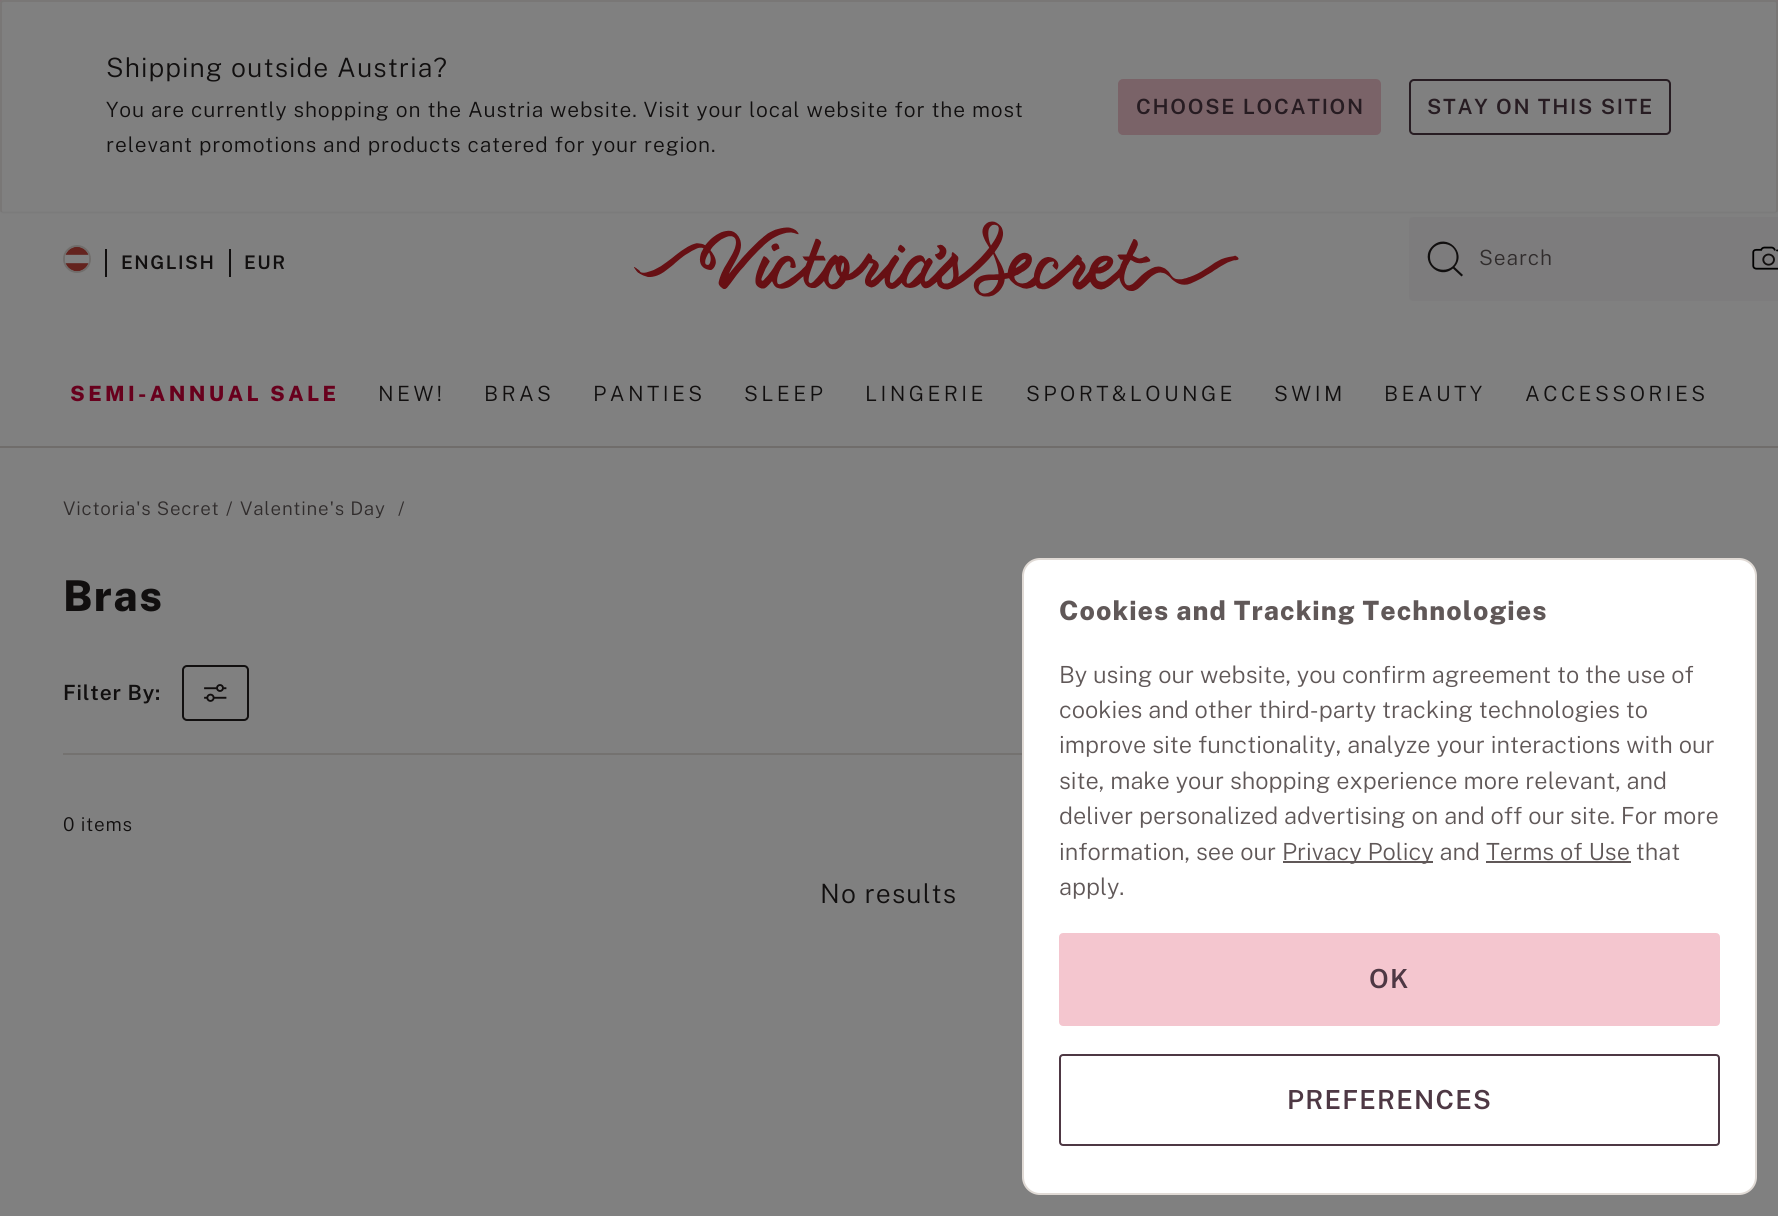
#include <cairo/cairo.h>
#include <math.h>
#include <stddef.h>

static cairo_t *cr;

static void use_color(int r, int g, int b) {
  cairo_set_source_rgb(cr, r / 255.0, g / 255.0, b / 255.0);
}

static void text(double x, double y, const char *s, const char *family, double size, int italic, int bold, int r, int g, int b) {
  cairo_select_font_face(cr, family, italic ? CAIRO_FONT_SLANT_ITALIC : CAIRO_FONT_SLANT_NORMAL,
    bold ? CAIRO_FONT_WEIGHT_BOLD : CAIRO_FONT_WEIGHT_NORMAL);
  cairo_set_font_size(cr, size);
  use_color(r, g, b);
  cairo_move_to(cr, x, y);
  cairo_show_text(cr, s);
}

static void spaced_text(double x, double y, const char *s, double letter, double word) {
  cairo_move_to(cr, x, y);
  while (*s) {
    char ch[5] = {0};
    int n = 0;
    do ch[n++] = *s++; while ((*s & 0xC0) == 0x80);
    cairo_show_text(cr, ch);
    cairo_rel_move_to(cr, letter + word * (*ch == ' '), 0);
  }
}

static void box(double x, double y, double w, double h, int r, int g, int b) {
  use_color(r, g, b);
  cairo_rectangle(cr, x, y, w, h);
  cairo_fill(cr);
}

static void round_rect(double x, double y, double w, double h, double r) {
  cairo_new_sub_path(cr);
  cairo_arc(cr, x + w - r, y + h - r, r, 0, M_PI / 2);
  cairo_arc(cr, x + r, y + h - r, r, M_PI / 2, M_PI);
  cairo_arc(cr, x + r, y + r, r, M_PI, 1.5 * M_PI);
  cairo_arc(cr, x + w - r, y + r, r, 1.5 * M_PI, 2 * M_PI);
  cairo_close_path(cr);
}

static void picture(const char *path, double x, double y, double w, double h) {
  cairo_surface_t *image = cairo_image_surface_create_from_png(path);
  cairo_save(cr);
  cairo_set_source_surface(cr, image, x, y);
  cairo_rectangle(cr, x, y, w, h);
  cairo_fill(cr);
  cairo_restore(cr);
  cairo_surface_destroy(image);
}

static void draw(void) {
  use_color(128, 128, 128);
  cairo_paint(cr);
  box(0, 0, 1778, 4, 125, 113, 116);
  use_color(128, 128, 128);
  round_rect(0, 0, 1778, 214, 4);
  cairo_fill(cr);
  cairo_new_path(cr);
  cairo_move_to(cr, 1776.5, 212);
  cairo_line_to(cr, 1774.5, 212.5);
  cairo_line_to(cr, 3.5, 212.5);
  cairo_line_to(cr, 1.5, 212);
  use_color(123, 123, 123);
  cairo_set_line_width(cr, 1.8);
  cairo_stroke(cr);
  cairo_new_path(cr);
  cairo_move_to(cr, 1.5, 212);
  cairo_line_to(cr, 1, 210);
  cairo_line_to(cr, 1, 3.5);
  cairo_line_to(cr, 1.5, 1.5);
  cairo_line_to(cr, 3.5, 1);
  cairo_line_to(cr, 1774.5, 1);
  cairo_line_to(cr, 1776.5, 1.5);
  cairo_line_to(cr, 1777, 3.5);
  cairo_line_to(cr, 1777, 210);
  cairo_line_to(cr, 1776.5, 212);
  use_color(120, 118, 117);
  cairo_stroke(cr);
  use_color(122, 99, 104);
  round_rect(1119, 80, 261, 54, 4);
  cairo_fill_preserve(cr);
  cairo_set_line_width(cr, 2);
  cairo_stroke(cr);
  round_rect(1410, 80, 260, 54, 4);
  use_color(39, 28, 34);
  cairo_stroke(cr);
  cairo_arc(cr, 77, 259, 13, 0, 2 * M_PI);
  use_color(112, 109, 107);
  cairo_stroke(cr);
  picture("img_01.png", 65, 246, 24, 26);
  box(105, 249, 2, 28, 17, 15, 15);
  box(229, 249, 2, 28, 17, 15, 15);
  picture("img_02.png", 634, 221, 605, 76);
  use_color(125, 124, 125);
  round_rect(1409, 217, 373, 84, 4);
  cairo_fill(cr);
  use_color(17, 15, 15);
  cairo_set_fill_rule(cr, CAIRO_FILL_RULE_EVEN_ODD);
  cairo_new_path(cr);
  cairo_move_to(cr, 1456.5, 257);
  cairo_curve_to(cr, 1456.5, 274, 1430, 274, 1430, 257);
  cairo_curve_to(cr, 1430, 239.5, 1456.5, 239.5, 1456.5, 257);
  cairo_close_path(cr);
  cairo_move_to(cr, 1453, 268.5);
  cairo_curve_to(cr, 1438, 281, 1418.5, 259.5, 1432.5, 246);
  cairo_curve_to(cr, 1446.5, 232.5, 1467.5, 252.5, 1454.5, 267);
  cairo_line_to(cr, 1463, 275);
  cairo_line_to(cr, 1461.5, 276.5);
  cairo_close_path(cr);
  cairo_fill(cr);
  picture("img_03.png", 1752, 246, 26, 24);
  box(0, 446, 1778, 2, 112, 109, 107);
  box(63, 753, 959, 2, 116, 114, 112);
  round_rect(183, 666, 65, 54, 4);
  use_color(17, 15, 15);
  cairo_stroke(cr);
  picture("img_04.png", 204, 684, 23, 18);
  use_color(255, 255, 255);
  round_rect(1023, 559, 733, 635, 17);
  cairo_fill_preserve(cr);
  use_color(224, 218, 213);
  cairo_stroke(cr);
  box(1283, 861, 150, 2, 96, 88, 88);
  box(1486, 861, 145, 2, 96, 88, 88);
  use_color(244, 198, 207);
  round_rect(1060, 934, 659, 91, 3);
  cairo_fill_preserve(cr);
  cairo_stroke(cr);
  round_rect(1060, 1055, 659, 90, 3);
  use_color(78, 56, 68);
  cairo_stroke(cr);
  cairo_select_font_face(cr, "Public Sans Light", CAIRO_FONT_SLANT_NORMAL, CAIRO_FONT_WEIGHT_NORMAL);
  cairo_set_font_size(cr, 26.6);
  use_color(17, 15, 15);
  spaced_text(106, 77, "Shipping outside Austria?", 1.05, 0);
  cairo_set_font_size(cr, 21);
  spaced_text(106, 117, "You are currently shopping on the Austria website. Visit your local website for the most", 0.85, 0);
  spaced_text(106, 152, "relevant promotions and products catered for your region.", 0.85, 0);
  cairo_select_font_face(cr, "Public Sans SemiBold", CAIRO_FONT_SLANT_NORMAL, CAIRO_FONT_WEIGHT_NORMAL);
  use_color(39, 28, 34);
  spaced_text(1136, 114, "CHOOSE LOCATION", 1.7, 0);
  spaced_text(1427, 114, "STAY ON THIS SITE", 1.7, 0);
  cairo_set_font_size(cr, 18.75);
  use_color(17, 15, 15);
  spaced_text(121, 269, "ENGLISH", 1.5, 0);
  spaced_text(244, 269, "EUR", 1.5, 0);
  cairo_select_font_face(cr, "Public Sans Light", CAIRO_FONT_SLANT_NORMAL, CAIRO_FONT_WEIGHT_NORMAL);
  cairo_set_font_size(cr, 21);
  use_color(48, 44, 44);
  spaced_text(1479, 265, "Search", 0.85, 0);
  cairo_select_font_face(cr, "Public Sans ExtraBold", CAIRO_FONT_SLANT_NORMAL, CAIRO_FONT_WEIGHT_NORMAL);
  use_color(104, 0, 29);
  spaced_text(70, 401, "SEMI-ANNUAL SALE", 3.4, 0);
  cairo_select_font_face(cr, "Public Sans Light", CAIRO_FONT_SLANT_NORMAL, CAIRO_FONT_WEIGHT_NORMAL);
  use_color(17, 15, 15);
  spaced_text(378, 401, "NEW!", 3.4, 0);
  spaced_text(484, 401, "BRAS", 3.4, 0);
  spaced_text(593, 401, "PANTIES", 3.4, 0);
  spaced_text(744, 401, "SLEEP", 3.4, 0);
  spaced_text(865, 401, "LINGERIE", 3.4, 0);
  spaced_text(1026, 401, "SPORT&LOUNGE", 3.4, 0);
  spaced_text(1274, 401, "SWIM", 3.4, 0);
  spaced_text(1384, 401, "BEAUTY", 3.4, 0);
  spaced_text(1525, 401, "ACCESSORIES", 3.4, 0);
  cairo_set_font_size(cr, 18.75);
  use_color(48, 44, 44);
  spaced_text(63, 515, "Victoria's Secret", 0.75, 0);
  spaced_text(226, 515, "/", 0.75, 0);
  spaced_text(240, 515, "Valentine's Day", 0.75, 0);
  spaced_text(398, 515, "/", 0.75, 0);
  cairo_select_font_face(cr, "Public Sans ExtraBold", CAIRO_FONT_SLANT_NORMAL, CAIRO_FONT_WEIGHT_NORMAL);
  cairo_set_font_size(cr, 42.5);
  use_color(17, 15, 15);
  spaced_text(63, 611, "Bras", 1.5, 0);
  cairo_select_font_face(cr, "Public Sans SemiBold", CAIRO_FONT_SLANT_NORMAL, CAIRO_FONT_WEIGHT_NORMAL);
  cairo_set_font_size(cr, 21);
  spaced_text(63, 700, "Filter By:", 0.85, 0);
  cairo_select_font_face(cr, "Public Sans Light", CAIRO_FONT_SLANT_NORMAL, CAIRO_FONT_WEIGHT_NORMAL);
  cairo_set_font_size(cr, 19);
  spaced_text(63, 831, "0 items", 0.75, 0);
  cairo_set_font_size(cr, 26.6);
  spaced_text(820, 903, "No results", 1.05, 0);
  cairo_select_font_face(cr, "Public Sans ExtraBold", CAIRO_FONT_SLANT_NORMAL, CAIRO_FONT_WEIGHT_NORMAL);
  use_color(96, 88, 88);
  spaced_text(1059, 620, "Cookies and Tracking Technologies", 1.05, 0);
  text(1059, 683, "By using our website, you confirm agreement to the use of", "Public Sans Light", 23.6, 0, 0, 96, 88, 88);
  text(1059, 718, "cookies and other third-party tracking technologies to", "Public Sans Light", 23.6, 0, 0, 96, 88, 88);
  text(1059, 753, "improve site functionality, analyze your interactions with our", "Public Sans Light", 23.6, 0, 0, 96, 88, 88);
  text(1059, 789, "site, make your shopping experience more relevant, and", "Public Sans Light", 23.6, 0, 0, 96, 88, 88);
  text(1059, 824, "deliver personalized advertising on and off our site. For more", "Public Sans Light", 23.6, 0, 0, 96, 88, 88);
  text(1059, 860, "information, see our", "Public Sans Light", 23.6, 0, 0, 96, 88, 88);
  text(1282, 860, "Privacy Policy and Terms of Use that", "Public Sans Light", 23.6, 0, 0, 96, 88, 88);
  text(1059, 895, "apply.", "Public Sans Light", 23.6, 0, 0, 96, 88, 88);
  cairo_select_font_face(cr, "Public Sans SemiBold", CAIRO_FONT_SLANT_NORMAL, CAIRO_FONT_WEIGHT_NORMAL);
  cairo_set_font_size(cr, 26.25);
  use_color(78, 56, 68);
  spaced_text(1369, 988, "OK", 1.25, 0);
  spaced_text(1287, 1109, "PREFERENCES", 1.25, 0);
}

int main(void) {
  cairo_surface_t *surface = cairo_image_surface_create(CAIRO_FORMAT_RGB24, 1778, 1216);
  cr = cairo_create(surface);
  cairo_font_options_t *options = cairo_font_options_create();
  cairo_font_options_set_hint_metrics(options, CAIRO_HINT_METRICS_OFF);
  cairo_font_options_set_hint_style(options, CAIRO_HINT_STYLE_NONE);
  cairo_set_font_options(cr, options);
  cairo_set_miter_limit(cr, 4);
  draw();
  cairo_surface_write_to_png(surface, "out.png");
  cairo_font_options_destroy(options);
  cairo_destroy(cr);
  cairo_surface_destroy(surface);
  return 0;
}
